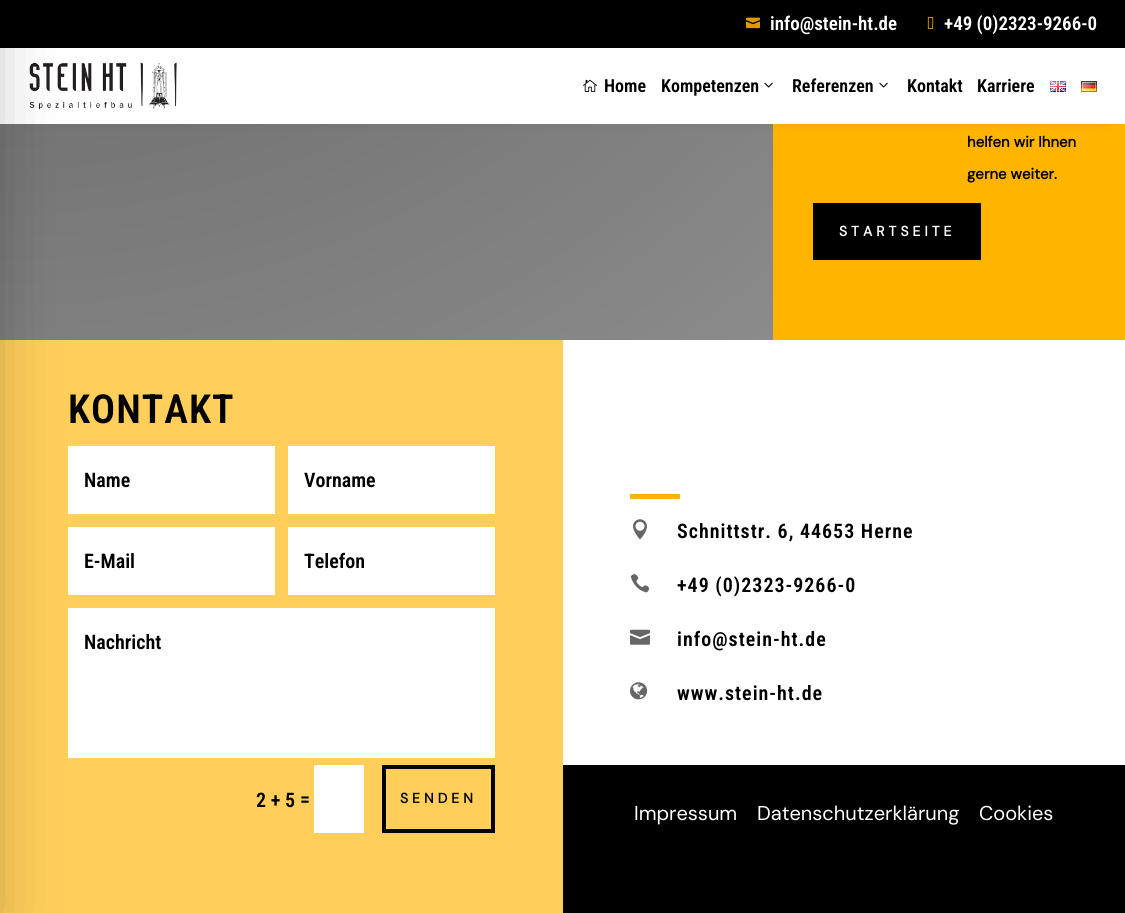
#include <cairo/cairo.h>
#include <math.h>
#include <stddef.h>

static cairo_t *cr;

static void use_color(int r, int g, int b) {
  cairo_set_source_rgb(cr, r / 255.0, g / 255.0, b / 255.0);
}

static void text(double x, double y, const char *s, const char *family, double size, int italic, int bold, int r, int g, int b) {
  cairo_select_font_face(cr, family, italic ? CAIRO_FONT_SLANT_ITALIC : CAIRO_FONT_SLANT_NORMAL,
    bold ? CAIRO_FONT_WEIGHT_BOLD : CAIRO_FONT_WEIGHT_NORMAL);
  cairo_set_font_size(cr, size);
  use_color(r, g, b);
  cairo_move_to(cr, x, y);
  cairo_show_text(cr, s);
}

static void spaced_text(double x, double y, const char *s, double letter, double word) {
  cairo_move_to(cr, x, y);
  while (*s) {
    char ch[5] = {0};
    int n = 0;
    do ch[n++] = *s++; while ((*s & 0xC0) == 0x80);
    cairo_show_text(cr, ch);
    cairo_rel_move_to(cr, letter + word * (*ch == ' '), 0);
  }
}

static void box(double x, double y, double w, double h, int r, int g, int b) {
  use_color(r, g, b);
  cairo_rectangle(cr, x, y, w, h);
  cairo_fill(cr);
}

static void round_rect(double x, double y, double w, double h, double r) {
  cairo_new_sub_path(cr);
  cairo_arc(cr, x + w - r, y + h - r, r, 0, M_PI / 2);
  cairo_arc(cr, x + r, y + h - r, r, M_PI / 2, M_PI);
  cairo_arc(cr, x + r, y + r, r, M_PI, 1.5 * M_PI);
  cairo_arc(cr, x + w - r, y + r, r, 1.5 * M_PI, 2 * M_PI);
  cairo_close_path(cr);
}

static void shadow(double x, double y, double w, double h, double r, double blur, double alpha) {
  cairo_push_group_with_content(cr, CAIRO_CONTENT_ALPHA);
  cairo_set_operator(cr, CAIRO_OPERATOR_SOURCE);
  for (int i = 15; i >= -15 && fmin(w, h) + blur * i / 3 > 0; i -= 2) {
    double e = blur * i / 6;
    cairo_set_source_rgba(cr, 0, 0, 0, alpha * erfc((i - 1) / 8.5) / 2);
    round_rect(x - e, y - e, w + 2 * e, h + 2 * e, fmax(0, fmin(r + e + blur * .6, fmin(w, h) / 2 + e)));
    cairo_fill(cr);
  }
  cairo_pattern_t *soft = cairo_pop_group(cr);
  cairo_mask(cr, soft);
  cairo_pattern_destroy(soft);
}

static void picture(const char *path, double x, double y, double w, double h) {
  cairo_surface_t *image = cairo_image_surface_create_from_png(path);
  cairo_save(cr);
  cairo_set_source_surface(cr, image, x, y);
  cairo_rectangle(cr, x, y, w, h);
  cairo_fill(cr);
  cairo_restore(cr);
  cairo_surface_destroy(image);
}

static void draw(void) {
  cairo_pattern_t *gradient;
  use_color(255, 255, 255);
  cairo_paint(cr);
  gradient = cairo_pattern_create_radial(0, -615, 0, 0, -615, 1476);
  cairo_pattern_add_color_stop_rgba(gradient, 0, 0.333, 0.333, 0.333, 1);
  cairo_pattern_add_color_stop_rgba(gradient, 1, 0.588, 0.588, 0.588, 1);
  cairo_set_source(cr, gradient);
  cairo_pattern_destroy(gradient);
  cairo_rectangle(cr, 0, 124, 773, 216);
  cairo_fill(cr);
  box(773, 124, 352, 216, 255, 180, 0);
  use_color(0, 0, 0);
  shadow(22, 34, 1081, 80, 0, 9, 0.3);
  box(6, 48, 1113, 76, 255, 255, 255);
  box(0, 0, 1125, 48, 0, 0, 0);
  picture("img_03.png", 29, 62, 148, 48);
  box(0, 340, 563, 573, 255, 206, 91);
  box(68, 446, 207, 68, 255, 255, 255);
  box(68, 527, 207, 68, 255, 255, 255);
  box(68, 608, 427, 150, 255, 255, 255);
  use_color(0, 0, 0);
  shadow(-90, 10, 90, 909, 0, 30, 0.2);
  picture("img_01.png", 746, 17, 14, 12);
  picture("img_02.png", 927, 17, 7, 12);
  picture("img_04.png", 583, 79, 14, 13);
  picture("img_05.png", 764, 82, 9, 6);
  picture("img_05.png", 879, 82, 9, 6);
  picture("img_06.png", 1050, 81, 16, 11);
  picture("img_07.png", 1081, 81, 16, 11);
  box(813, 203, 168, 57, 0, 0, 0);
  box(563, 765, 562, 148, 0, 0, 0);
  box(288, 446, 207, 68, 255, 255, 255);
  box(288, 527, 207, 68, 255, 255, 255);
  box(314, 765, 50, 68, 255, 255, 255);
  cairo_rectangle(cr, 384, 767, 109, 64);
  use_color(0, 0, 0);
  cairo_set_line_width(cr, 4);
  cairo_stroke(cr);
  box(630, 494, 50, 5, 255, 180, 0);
  picture("img_08.png", 633, 519, 14, 21);
  picture("img_09.png", 630, 574, 20, 19);
  picture("img_10.png", 630, 629, 20, 16);
  picture("img_11.png", 630, 682, 18, 18);
  text(770, 30, "info@stein-ht.de", "Roboto Condensed SemiBold", 19, 0, 0, 255, 255, 255);
  text(944, 30, "+49 (0)2323-9266-0", "Roboto Condensed SemiBold", 19, 0, 0, 255, 255, 255);
  text(604, 92, "Home", "Roboto Condensed SemiBold", 18, 0, 0, 0, 0, 0);
  text(661, 92, "Kompetenzen", "Roboto Condensed SemiBold", 18, 0, 0, 0, 0, 0);
  text(792, 92, "Referenzen", "Roboto Condensed SemiBold", 18, 0, 0, 0, 0, 0);
  text(907, 92, "Kontakt", "Roboto Condensed SemiBold", 18, 0, 0, 0, 0, 0);
  text(977, 92, "Karriere", "Roboto Condensed SemiBold", 18, 0, 0, 0, 0, 0);
  text(967, 147, "helfen wir Ihnen", "DM Sans", 15, 0, 1, 0, 0, 0);
  text(967, 179, "gerne weiter.", "DM Sans", 15, 0, 1, 0, 0, 0);
  cairo_set_font_size(cr, 14);
  use_color(255, 255, 255);
  spaced_text(839, 236, "STARTSEITE", 4, 0);
  cairo_select_font_face(cr, "Roboto Condensed SemiBold", CAIRO_FONT_SLANT_NORMAL, CAIRO_FONT_WEIGHT_NORMAL);
  cairo_set_font_size(cr, 40);
  use_color(0, 0, 0);
  spaced_text(68, 423, "KONTAKT", 1, 0);
  text(84, 487, "Name", "Roboto Condensed SemiBold", 20, 0, 0, 0, 0, 0);
  text(304, 487, "Vorname", "Roboto Condensed SemiBold", 20, 0, 0, 0, 0, 0);
  text(84, 568, "E-Mail", "Roboto Condensed SemiBold", 20, 0, 0, 0, 0, 0);
  text(304, 568, "Telefon", "Roboto Condensed SemiBold", 20, 0, 0, 0, 0, 0);
  text(84, 649, "Nachricht", "Roboto Condensed SemiBold", 20, 0, 0, 0, 0, 0);
  text(256, 807, "2 + 5", "Roboto Condensed SemiBold", 20, 0, 0, 0, 0, 0);
  text(300, 806, "=", "Roboto Condensed SemiBold", 20, 0, 0, 0, 0, 0);
  cairo_select_font_face(cr, "DM Sans", CAIRO_FONT_SLANT_NORMAL, CAIRO_FONT_WEIGHT_BOLD);
  cairo_set_font_size(cr, 14);
  spaced_text(400, 803, "SENDEN", 4, 0);
  cairo_select_font_face(cr, "Roboto Condensed SemiBold", CAIRO_FONT_SLANT_NORMAL, CAIRO_FONT_WEIGHT_NORMAL);
  cairo_set_font_size(cr, 20);
  spaced_text(677, 538, "Schnittstr. 6, 44653 Herne", 1, 0);
  spaced_text(677, 592, "+49 (0)2323-9266-0", 1, 0);
  spaced_text(677, 646, "info@stein-ht.de", 1, 0);
  spaced_text(677, 700, "www.stein-ht.de", 1, 0);
  text(634, 820, "Impressum", "DM Sans", 20, 0, 0, 255, 255, 255);
  text(757, 820, "Datenschutzerklärung", "DM Sans", 20, 0, 0, 255, 255, 255);
  text(979, 820, "Cookies", "DM Sans", 20, 0, 0, 255, 255, 255);
}

int main(void) {
  cairo_surface_t *surface = cairo_image_surface_create(CAIRO_FORMAT_RGB24, 1125, 913);
  cr = cairo_create(surface);
  cairo_font_options_t *options = cairo_font_options_create();
  cairo_font_options_set_hint_metrics(options, CAIRO_HINT_METRICS_OFF);
  cairo_font_options_set_hint_style(options, CAIRO_HINT_STYLE_NONE);
  cairo_set_font_options(cr, options);
  cairo_set_miter_limit(cr, 4);
  draw();
  cairo_surface_write_to_png(surface, "out.png");
  cairo_font_options_destroy(options);
  cairo_destroy(cr);
  cairo_surface_destroy(surface);
  return 0;
}
